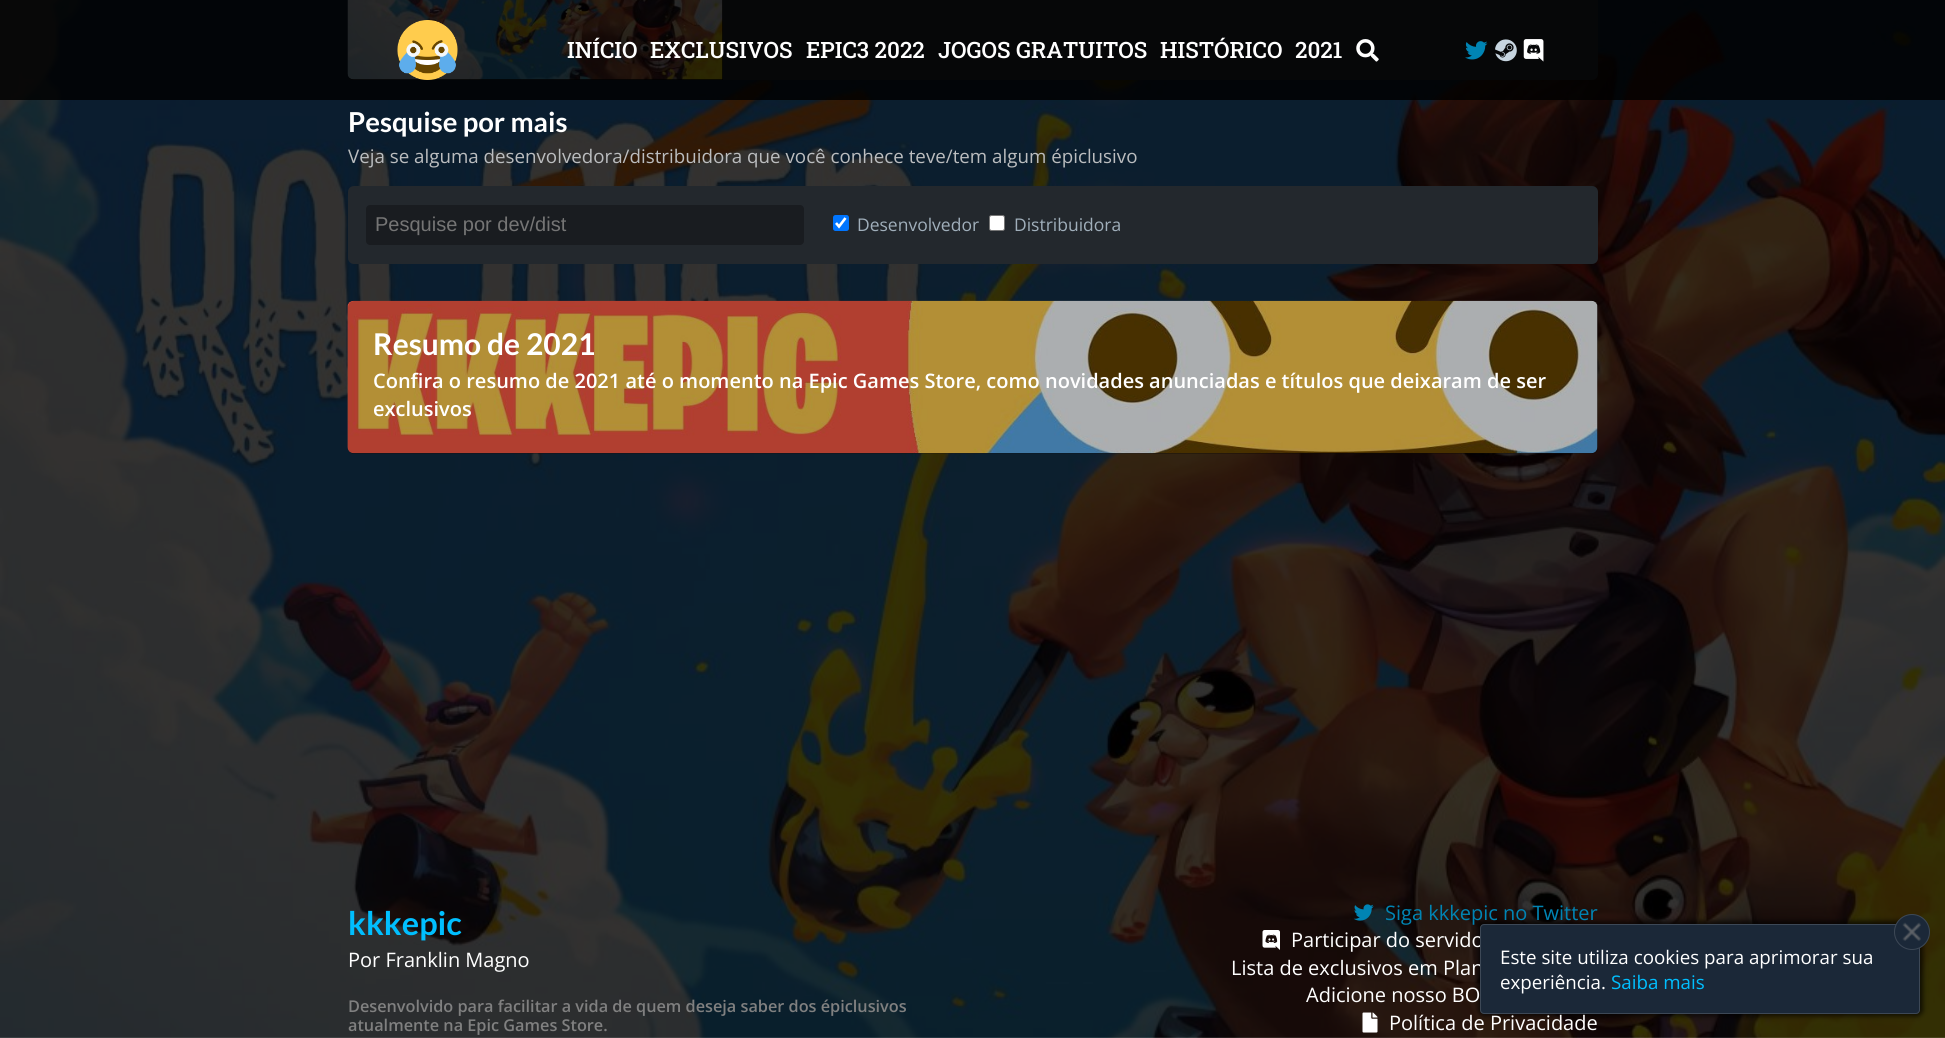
#include <cairo/cairo.h>
#include <math.h>
#include <stddef.h>

static cairo_t *cr;

static void use_color(int r, int g, int b) {
  cairo_set_source_rgb(cr, r / 255.0, g / 255.0, b / 255.0);
}

static void text(double x, double y, const char *s, const char *family, double size, int italic, int bold, int r, int g, int b) {
  cairo_select_font_face(cr, family, italic ? CAIRO_FONT_SLANT_ITALIC : CAIRO_FONT_SLANT_NORMAL,
    bold ? CAIRO_FONT_WEIGHT_BOLD : CAIRO_FONT_WEIGHT_NORMAL);
  cairo_set_font_size(cr, size);
  use_color(r, g, b);
  cairo_move_to(cr, x, y);
  cairo_show_text(cr, s);
}

static void round_rect(double x, double y, double w, double h, double r) {
  cairo_new_sub_path(cr);
  cairo_arc(cr, x + w - r, y + h - r, r, 0, M_PI / 2);
  cairo_arc(cr, x + r, y + h - r, r, M_PI / 2, M_PI);
  cairo_arc(cr, x + r, y + r, r, M_PI, 1.5 * M_PI);
  cairo_arc(cr, x + w - r, y + r, r, 1.5 * M_PI, 2 * M_PI);
  cairo_close_path(cr);
}

static void shadow(double x, double y, double w, double h, double r, double blur, double alpha) {
  cairo_push_group_with_content(cr, CAIRO_CONTENT_ALPHA);
  cairo_set_operator(cr, CAIRO_OPERATOR_SOURCE);
  for (int i = 15; i >= -15 && fmin(w, h) + blur * i / 3 > 0; i -= 2) {
    double e = blur * i / 6;
    cairo_set_source_rgba(cr, 0, 0, 0, alpha * erfc((i - 1) / 8.5) / 2);
    round_rect(x - e, y - e, w + 2 * e, h + 2 * e, fmax(0, fmin(r + e + blur * .6, fmin(w, h) / 2 + e)));
    cairo_fill(cr);
  }
  cairo_pattern_t *soft = cairo_pop_group(cr);
  cairo_mask(cr, soft);
  cairo_pattern_destroy(soft);
}

static void picture(const char *path, double x, double y, double w, double h) {
  cairo_surface_t *image = cairo_image_surface_create_from_png(path);
  cairo_save(cr);
  cairo_set_source_surface(cr, image, x, y);
  cairo_rectangle(cr, x, y, w, h);
  cairo_fill(cr);
  cairo_restore(cr);
  cairo_surface_destroy(image);
}

static void draw(void) {
  use_color(255, 255, 255);
  cairo_paint(cr);
  picture("img_01.png", 0, 0, 1945, 1038);
  use_color(35, 40, 45);
  round_rect(348, -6, 1250, 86, 6);
  cairo_fill(cr);
  use_color(0, 0, 0);
  cairo_new_path(cr);
  cairo_move_to(cr, 354, -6);
  cairo_line_to(cr, 723, -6);
  cairo_line_to(cr, 723, 80);
  cairo_line_to(cr, 354, 80);
  cairo_curve_to(cr, 350.5, 80, 348, 77.5, 348, 74);
  cairo_line_to(cr, 348, 0);
  cairo_curve_to(cr, 348, -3.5, 350.5, -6, 354, -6);
  cairo_close_path(cr);
  cairo_fill(cr);
  picture("img_07.png", 347, 0, 376, 80);
  cairo_set_source_rgba(cr, 0, 0, 0, 0.83);
  cairo_rectangle(cr, 0, 0, 1945, 100);
  cairo_fill(cr);
  picture("img_02.png", 397, 20, 61, 60);
  picture("img_03.png", 1356, 39, 23, 23);
  picture("img_04.png", 1465, 41, 23, 19);
  picture("img_05.png", 1495, 39, 22, 23);
  picture("img_06.png", 1523, 39, 21, 23);
  use_color(35, 40, 45);
  round_rect(348, 186, 1250, 78, 6);
  cairo_fill(cr);
  use_color(25, 28, 32);
  round_rect(366, 205, 438, 40, 4);
  cairo_fill(cr);
  use_color(0, 117, 255);
  round_rect(833, 215, 16, 16, 2.5);
  cairo_fill(cr);
  cairo_new_path(cr);
  cairo_move_to(cr, 836, 223);
  cairo_line_to(cr, 839, 226.5);
  cairo_line_to(cr, 845.5, 218);
  use_color(255, 255, 255);
  cairo_set_line_width(cr, 2.6);
  cairo_stroke(cr);
  round_rect(989.5, 215.5, 15, 15, 2);
  cairo_fill_preserve(cr);
  use_color(118, 118, 118);
  cairo_set_line_width(cr, 1);
  cairo_stroke(cr);
  picture("img_08.png", 347, 300, 1251, 154);
  cairo_set_source_rgba(cr, 0, 0, 0, 0.3);
  round_rect(348, 301, 1250, 153, 6);
  cairo_fill(cr);
  picture("img_09.png", 1354, 904, 20, 17);
  picture("img_10.png", 1262, 930, 18, 20);
  picture("img_11.png", 1362, 1012, 16, 21);
  use_color(0, 0, 0);
  shadow(1478, 921, 445, 95, 6, 2.5, 0.7);
  text(567, 58, "INÍCIO", "Roboto Slab Medium", 22.5, 0, 0, 255, 255, 255);
  text(650, 58, "EXCLUSIVOS", "Roboto Slab Medium", 22.5, 0, 0, 255, 255, 255);
  text(806, 58, "EPIC3 2022", "Roboto Slab Medium", 22.5, 0, 0, 255, 255, 255);
  text(938, 58, "JOGOS GRATUITOS", "Roboto Slab Medium", 22.5, 0, 0, 255, 255, 255);
  text(1160, 58, "HISTÓRICO", "Roboto Slab Medium", 22.5, 0, 0, 255, 255, 255);
  text(1295, 58, "2021", "Roboto Slab Medium", 22.5, 0, 0, 255, 255, 255);
  text(348, 132, "Pesquise por mais", "Lato", 27.5, 0, 1, 255, 255, 255);
  text(348, 163, "Veja se alguma desenvolvedora/distribuidora que você conhece teve/tem algum épiclusivo", "Open Sans", 18.75, 0, 0, 187, 189, 191);
  text(375, 231, "Pesquise por dev/dist", "Liberation Sans", 20, 0, 0, 117, 117, 117);
  text(857, 231, "Desenvolvedor", "Open Sans", 17.5, 0, 0, 160, 175, 187);
  text(1014, 231, "Distribuidora", "Open Sans", 17.5, 0, 0, 160, 175, 187);
  text(373, 355, "Resumo de 2021", "Lato", 30, 0, 1, 255, 255, 255);
  text(373, 388, "Confira o resumo de 2021 até o momento na Epic Games Store, como novidades anunciadas e títulos que deixaram de ser", "Open Sans SemiBold", 20, 0, 0, 255, 255, 255);
  text(373, 416, "exclusivos", "Open Sans SemiBold", 20, 0, 0, 255, 255, 255);
  text(348, 935, "kkkepic", "Lato", 32.5, 0, 1, 0, 191, 255);
  text(348, 967, "Por Franklin Magno", "Open Sans", 20, 0, 0, 255, 255, 255);
  text(348, 1012, "Desenvolvido para facilitar a vida de quem deseja saber dos épiclusivos", "Open Sans SemiBold", 16.25, 0, 0, 128, 128, 128);
  text(348, 1031, "atualmente na Epic Games Store.", "Open Sans SemiBold", 16.25, 0, 0, 128, 128, 128);
  text(1385, 920, "Siga kkkepic no Twitter", "Open Sans", 20, 0, 0, 0, 132, 180);
  text(1291, 947, "Participar do servido", "Open Sans", 20, 0, 0, 255, 255, 255);
  text(1231, 975, "Lista de exclusivos em Plan", "Open Sans", 20, 0, 0, 255, 255, 255);
  text(1306, 1002, "Adicione nosso BO", "Open Sans", 20, 0, 0, 255, 255, 255);
  text(1389, 1030, "Política de Privacidade", "Open Sans", 20, 0, 0, 255, 255, 255);
  use_color(27, 40, 56);
  round_rect(1480, 924, 440, 90, 4);
  cairo_fill(cr);
  round_rect(1480.5, 924.5, 439, 89, 3.5);
  cairo_set_source_rgba(cr, 1, 1, 1, 0.15);
  cairo_stroke(cr);
  use_color(27, 40, 56);
  cairo_arc(cr, 1912, 932, 18, 0, 2 * M_PI);
  cairo_fill(cr);
  picture("img_12.png", 1902, 922, 19, 19);
  cairo_arc(cr, 1912, 932, 17.5, 0, 2 * M_PI);
  cairo_set_source_rgba(cr, 1, 1, 1, 0.15);
  cairo_stroke(cr);
  text(1500, 964, "Este site utiliza cookies para aprimorar sua", "Open Sans", 18.75, 0, 0, 255, 255, 255);
  text(1500, 989, "experiência.", "Open Sans", 18.75, 0, 0, 255, 255, 255);
  text(1611, 989, "Saiba mais", "Open Sans", 18.75, 0, 0, 0, 191, 255);
}

int main(void) {
  cairo_surface_t *surface = cairo_image_surface_create(CAIRO_FORMAT_RGB24, 1945, 1038);
  cr = cairo_create(surface);
  cairo_font_options_t *options = cairo_font_options_create();
  cairo_font_options_set_hint_metrics(options, CAIRO_HINT_METRICS_OFF);
  cairo_font_options_set_hint_style(options, CAIRO_HINT_STYLE_NONE);
  cairo_set_font_options(cr, options);
  cairo_set_miter_limit(cr, 4);
  draw();
  cairo_surface_write_to_png(surface, "out.png");
  cairo_font_options_destroy(options);
  cairo_destroy(cr);
  cairo_surface_destroy(surface);
  return 0;
}
